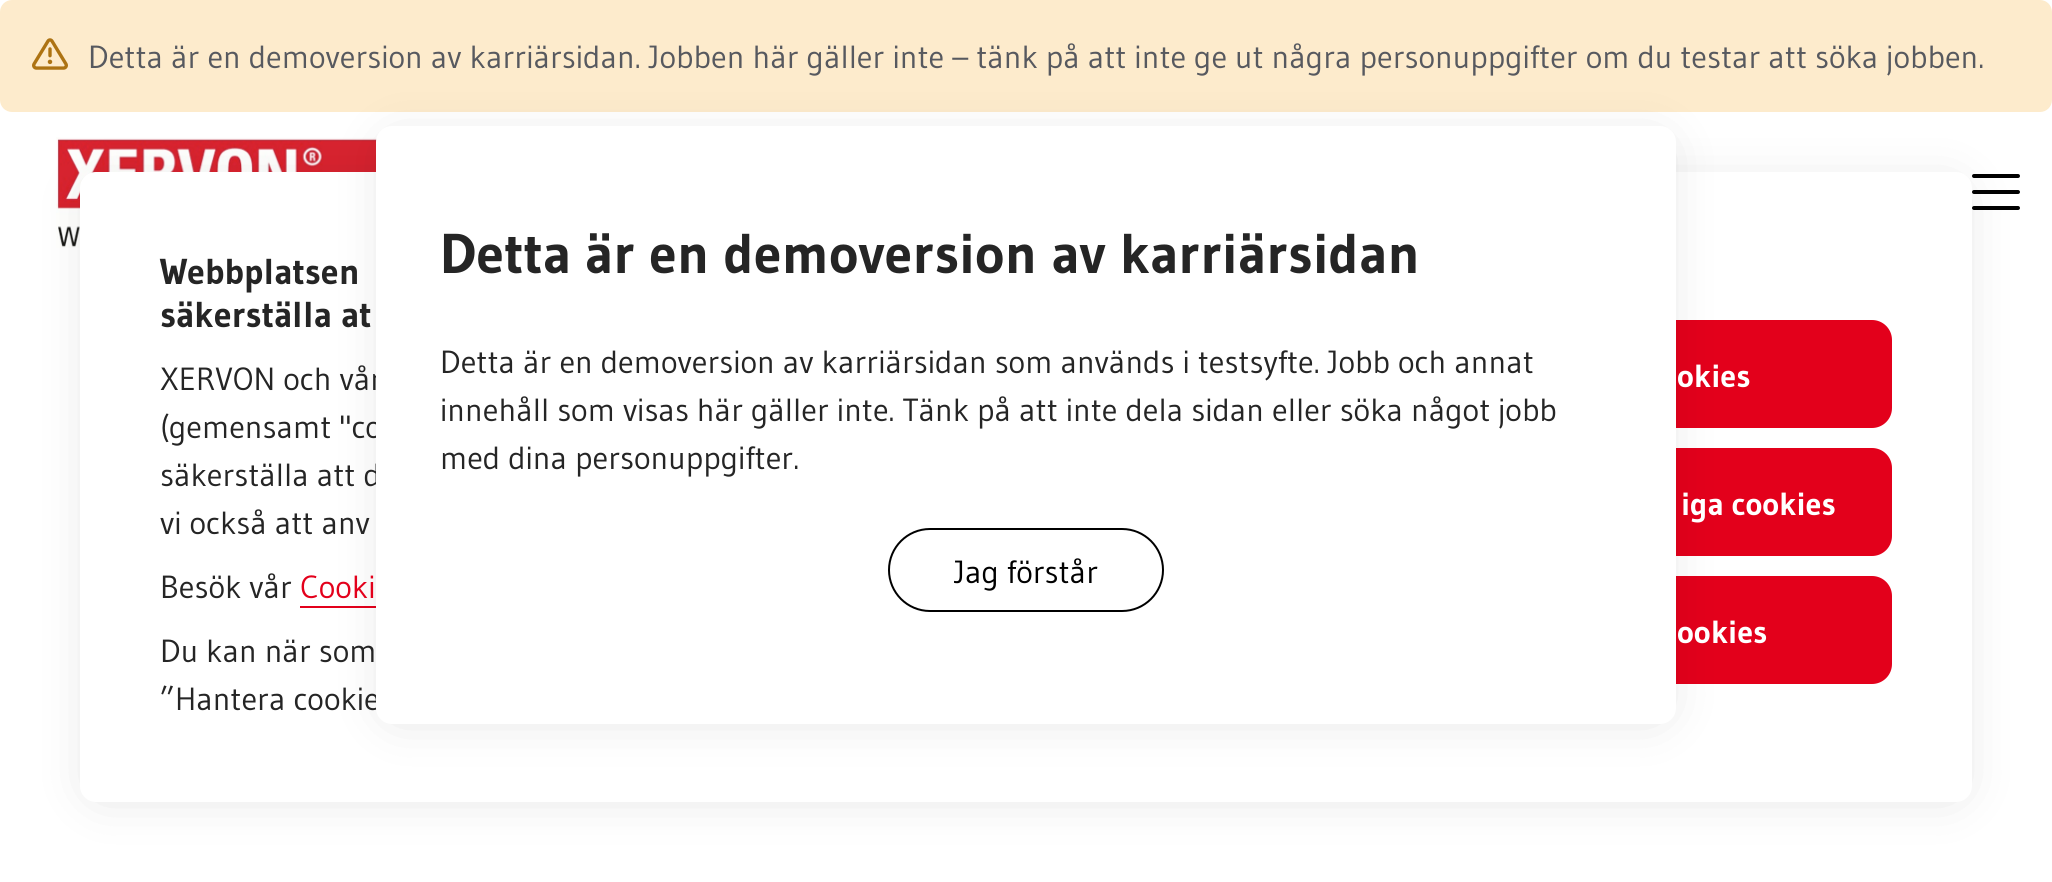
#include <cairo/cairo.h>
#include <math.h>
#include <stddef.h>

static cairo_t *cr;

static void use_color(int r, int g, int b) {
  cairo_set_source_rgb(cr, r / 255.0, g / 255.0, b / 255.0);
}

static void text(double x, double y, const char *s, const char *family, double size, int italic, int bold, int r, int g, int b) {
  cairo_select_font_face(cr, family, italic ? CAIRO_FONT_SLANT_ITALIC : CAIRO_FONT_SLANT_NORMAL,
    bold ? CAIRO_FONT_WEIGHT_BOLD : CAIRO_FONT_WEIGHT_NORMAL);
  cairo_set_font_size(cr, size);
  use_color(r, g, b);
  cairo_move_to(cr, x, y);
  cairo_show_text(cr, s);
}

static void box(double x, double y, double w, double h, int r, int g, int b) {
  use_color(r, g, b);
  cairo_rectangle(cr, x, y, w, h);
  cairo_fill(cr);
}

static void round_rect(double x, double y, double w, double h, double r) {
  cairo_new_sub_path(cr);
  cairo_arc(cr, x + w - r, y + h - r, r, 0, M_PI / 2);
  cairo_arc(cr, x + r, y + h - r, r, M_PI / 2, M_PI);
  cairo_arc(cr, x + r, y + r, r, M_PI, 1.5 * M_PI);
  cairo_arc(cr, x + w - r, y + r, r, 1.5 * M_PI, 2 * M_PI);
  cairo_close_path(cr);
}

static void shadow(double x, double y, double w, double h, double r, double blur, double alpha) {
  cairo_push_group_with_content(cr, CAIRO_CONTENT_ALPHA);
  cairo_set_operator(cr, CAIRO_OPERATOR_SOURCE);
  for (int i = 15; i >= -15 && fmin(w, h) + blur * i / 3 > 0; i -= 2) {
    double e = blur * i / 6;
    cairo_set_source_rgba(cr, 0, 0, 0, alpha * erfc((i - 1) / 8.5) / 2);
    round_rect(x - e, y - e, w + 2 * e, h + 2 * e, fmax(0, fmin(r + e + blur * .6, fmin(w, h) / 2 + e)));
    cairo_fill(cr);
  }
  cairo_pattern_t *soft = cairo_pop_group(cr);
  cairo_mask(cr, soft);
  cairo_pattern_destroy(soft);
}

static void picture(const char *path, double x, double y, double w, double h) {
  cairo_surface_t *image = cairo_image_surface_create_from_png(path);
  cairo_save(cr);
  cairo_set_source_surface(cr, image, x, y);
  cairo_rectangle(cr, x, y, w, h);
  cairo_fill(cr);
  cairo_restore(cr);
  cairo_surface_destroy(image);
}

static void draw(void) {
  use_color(255, 255, 255);
  cairo_paint(cr);
  use_color(253, 235, 204);
  round_rect(0, 0, 2052, 112, 12);
  cairo_fill(cr);
  picture("img_01.png", 32, 38, 36, 32);
  picture("img_02.png", 56, 137, 321, 111);
  use_color(0, 0, 0);
  round_rect(1972, 174, 48, 4, 2);
  cairo_fill(cr);
  round_rect(1972, 190, 48, 4, 2);
  cairo_fill(cr);
  round_rect(1972, 206, 48, 4, 2);
  cairo_fill(cr);
  use_color(0, 0, 0);
  shadow(100, 196, 1852, 590, 0, 27, 0.18);
  use_color(255, 255, 255);
  round_rect(80, 172, 1892, 630, 16);
  cairo_fill(cr);
  box(300, 606, 76, 2, 227, 0, 27);
  round_rect(1302, 320, 590, 108, 20);
  cairo_fill(cr);
  round_rect(1302, 448, 590, 108, 20);
  cairo_fill(cr);
  round_rect(1302, 576, 590, 108, 20);
  cairo_fill(cr);
  use_color(0, 0, 0);
  shadow(396, 150, 1260, 558, 0, 27, 0.18);
  text(88, 68, "Detta är en demoversion av karriärsidan. Jobben här gäller inte – tänk på att inte ge ut några personuppgifter om du testar att söka jobben.", "Gudea", 32, 0, 0, 87, 89, 95);
  text(160, 284, "Webbplatsen", "Gudea", 36, 0, 1, 37, 37, 37);
  text(160, 327, "säkerställa at", "Gudea", 36, 0, 1, 37, 37, 37);
  text(160, 390, "XERVON och vår", "Gudea", 32, 0, 0, 37, 37, 37);
  text(160, 438, "(gemensamt \"co", "Gudea", 32, 0, 0, 37, 37, 37);
  text(160, 486, "säkerställa att d", "Gudea", 32, 0, 0, 37, 37, 37);
  text(160, 534, "vi också att anv", "Gudea", 32, 0, 0, 37, 37, 37);
  text(160, 598, "Besök vår", "Gudea", 32, 0, 0, 37, 37, 37);
  text(300, 598, "Cooki", "Gudea", 32, 0, 0, 227, 0, 27);
  text(160, 662, "Du kan när som", "Gudea", 32, 0, 0, 37, 37, 37);
  text(160, 710, "”Hantera cookie", "Gudea", 32, 0, 0, 37, 37, 37);
  use_color(255, 255, 255);
  round_rect(376, 126, 1300, 598, 16);
  cairo_fill(cr);
  round_rect(889, 529, 274, 82, 41);
  use_color(0, 0, 0);
  cairo_stroke(cr);
  text(954, 583, "Jag förstår", "Gudea", 32, 0, 0, 0, 0, 0);
  text(440, 469, "med dina personuppgifter.", "Gudea", 32, 0, 0, 37, 37, 37);
  text(440, 421, "innehåll som visas här gäller inte. Tänk på att inte dela sidan eller söka något jobb", "Gudea", 32, 0, 0, 37, 37, 37);
  text(440, 373, "Detta är en demoversion av karriärsidan som används i testsyfte. Jobb och annat", "Gudea", 32, 0, 0, 37, 37, 37);
  text(440, 273, "Detta är en demoversion av karriärsidan", "Gudea", 56, 0, 1, 37, 37, 37);
  text(1677, 387, "okies", "Gudea", 32, 0, 1, 255, 255, 255);
  text(1681, 515, "iga cookies", "Gudea", 32, 0, 1, 255, 255, 255);
  text(1677, 643, "ookies", "Gudea", 32, 0, 1, 255, 255, 255);
}

int main(void) {
  cairo_surface_t *surface = cairo_image_surface_create(CAIRO_FORMAT_RGB24, 2052, 882);
  cr = cairo_create(surface);
  cairo_font_options_t *options = cairo_font_options_create();
  cairo_font_options_set_hint_metrics(options, CAIRO_HINT_METRICS_OFF);
  cairo_font_options_set_hint_style(options, CAIRO_HINT_STYLE_NONE);
  cairo_set_font_options(cr, options);
  cairo_set_miter_limit(cr, 4);
  draw();
  cairo_surface_write_to_png(surface, "out.png");
  cairo_font_options_destroy(options);
  cairo_destroy(cr);
  cairo_surface_destroy(surface);
  return 0;
}
